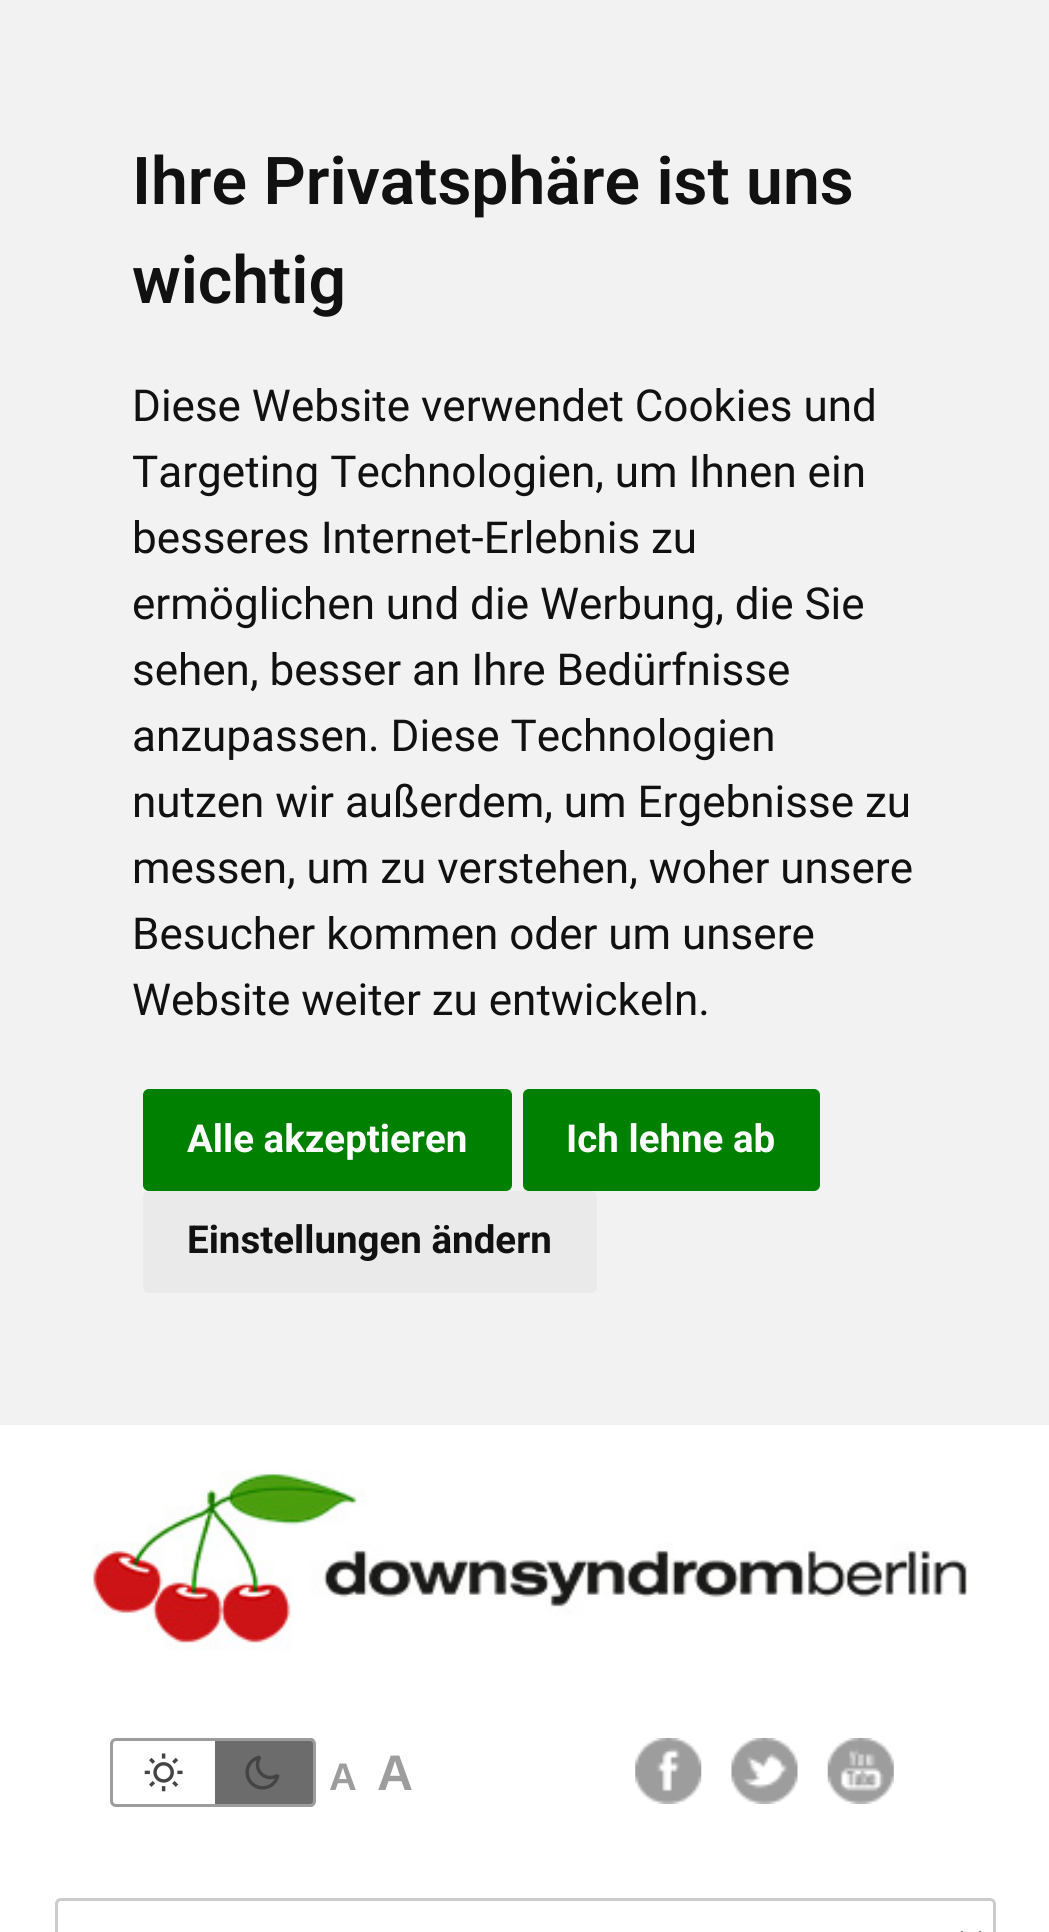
#include <cairo/cairo.h>
#include <math.h>
#include <stddef.h>

static cairo_t *cr;

static void use_color(int r, int g, int b) {
  cairo_set_source_rgb(cr, r / 255.0, g / 255.0, b / 255.0);
}

static void text(double x, double y, const char *s, const char *family, double size, int italic, int bold, int r, int g, int b) {
  cairo_select_font_face(cr, family, italic ? CAIRO_FONT_SLANT_ITALIC : CAIRO_FONT_SLANT_NORMAL,
    bold ? CAIRO_FONT_WEIGHT_BOLD : CAIRO_FONT_WEIGHT_NORMAL);
  cairo_set_font_size(cr, size);
  use_color(r, g, b);
  cairo_move_to(cr, x, y);
  cairo_show_text(cr, s);
}

static void box(double x, double y, double w, double h, int r, int g, int b) {
  use_color(r, g, b);
  cairo_rectangle(cr, x, y, w, h);
  cairo_fill(cr);
}

static void round_rect(double x, double y, double w, double h, double r) {
  cairo_new_sub_path(cr);
  cairo_arc(cr, x + w - r, y + h - r, r, 0, M_PI / 2);
  cairo_arc(cr, x + r, y + h - r, r, M_PI / 2, M_PI);
  cairo_arc(cr, x + r, y + r, r, M_PI, 1.5 * M_PI);
  cairo_arc(cr, x + w - r, y + r, r, 1.5 * M_PI, 2 * M_PI);
  cairo_close_path(cr);
}

static void picture(const char *path, double x, double y, double w, double h) {
  cairo_surface_t *image = cairo_image_surface_create_from_png(path);
  cairo_save(cr);
  cairo_set_source_surface(cr, image, x, y);
  cairo_rectangle(cr, x, y, w, h);
  cairo_fill(cr);
  cairo_restore(cr);
  cairo_surface_destroy(image);
}

static void draw(void) {
  use_color(255, 255, 255);
  cairo_paint(cr);
  box(0, 0, 1049, 1425, 242, 242, 242);
  use_color(0, 128, 0);
  round_rect(143, 1089, 369, 102, 6);
  cairo_fill(cr);
  round_rect(523, 1089, 297, 102, 6);
  cairo_fill(cr);
  use_color(234, 234, 234);
  round_rect(143, 1191, 454, 102, 6);
  cairo_fill(cr);
  picture("img_01.png", 91, 1470, 876, 181);
  cairo_save(cr);
  round_rect(110, 1738, 206, 69, 6);
  cairo_clip(cr);
  box(215, 1738, 99, 69, 108, 108, 108);
  cairo_restore(cr);
  round_rect(111.5, 1739.5, 203, 66, 4.5);
  use_color(157, 157, 157);
  cairo_set_line_width(cr, 3);
  cairo_stroke(cr);
  picture("img_02.png", 144, 1753, 39, 39);
  picture("img_03.png", 245, 1755, 35, 35);
  picture("img_04.png", 635, 1738, 67, 66);
  picture("img_05.png", 731, 1738, 67, 66);
  picture("img_06.png", 827, 1738, 67, 66);
  round_rect(56.5, 1899.5, 938, 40, 4.5);
  use_color(204, 204, 204);
  cairo_stroke(cr);
  cairo_new_path(cr);
  cairo_move_to(cr, 960, 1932.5);
  cairo_line_to(cr, 971, 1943.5);
  cairo_line_to(cr, 982, 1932.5);
  use_color(119, 119, 119);
  cairo_set_line_width(cr, 5.5);
  cairo_stroke(cr);
  text(132, 204, "Ihre Privatsphäre ist uns", "Roboto SemiBold", 66, 0, 0, 17, 17, 17);
  text(132, 303, "wichtig", "Roboto SemiBold", 66, 0, 0, 17, 17, 17);
  text(132, 421, "Diese Website verwendet Cookies und", "Roboto", 44, 0, 0, 17, 17, 17);
  text(132, 487, "Targeting Technologien, um Ihnen ein", "Roboto", 44, 0, 0, 17, 17, 17);
  text(132, 553, "besseres Internet-Erlebnis zu", "Roboto", 44, 0, 0, 17, 17, 17);
  text(132, 619, "ermöglichen und die Werbung, die Sie", "Roboto", 44, 0, 0, 17, 17, 17);
  text(132, 685, "sehen, besser an Ihre Bedürfnisse", "Roboto", 44, 0, 0, 17, 17, 17);
  text(132, 751, "anzupassen. Diese Technologien", "Roboto", 44, 0, 0, 17, 17, 17);
  text(132, 817, "nutzen wir außerdem, um Ergebnisse zu", "Roboto", 44, 0, 0, 17, 17, 17);
  text(132, 883, "messen, um zu verstehen, woher unsere", "Roboto", 44, 0, 0, 17, 17, 17);
  text(132, 949, "Besucher kommen oder um unsere", "Roboto", 44, 0, 0, 17, 17, 17);
  text(132, 1015, "Website weiter zu entwickeln.", "Roboto", 44, 0, 0, 17, 17, 17);
  text(187, 1152, "Alle akzeptieren", "Roboto", 38.5, 0, 1, 255, 255, 255);
  text(566, 1152, "Ich lehne ab", "Roboto", 38.5, 0, 1, 255, 255, 255);
  text(187, 1253, "Einstellungen ändern", "Roboto", 38.5, 0, 1, 17, 17, 17);
  text(329, 1790, "A", "Liberation Sans", 38.5, 0, 1, 157, 157, 157);
  text(377, 1790, "A", "Liberation Sans", 50, 0, 1, 157, 157, 157);
}

int main(void) {
  cairo_surface_t *surface = cairo_image_surface_create(CAIRO_FORMAT_RGB24, 1049, 1932);
  cr = cairo_create(surface);
  cairo_font_options_t *options = cairo_font_options_create();
  cairo_font_options_set_hint_metrics(options, CAIRO_HINT_METRICS_OFF);
  cairo_font_options_set_hint_style(options, CAIRO_HINT_STYLE_NONE);
  cairo_set_font_options(cr, options);
  cairo_set_miter_limit(cr, 4);
  draw();
  cairo_surface_write_to_png(surface, "out.png");
  cairo_font_options_destroy(options);
  cairo_destroy(cr);
  cairo_surface_destroy(surface);
  return 0;
}
